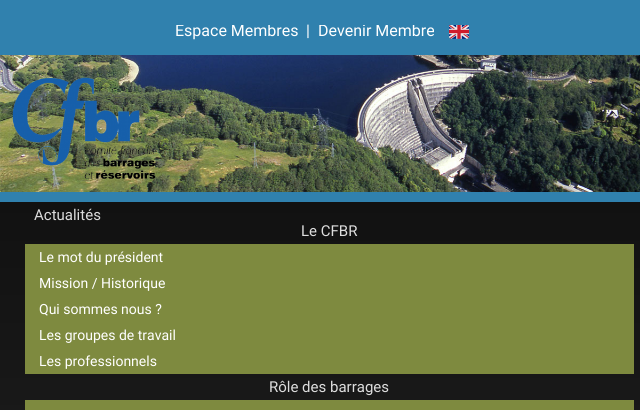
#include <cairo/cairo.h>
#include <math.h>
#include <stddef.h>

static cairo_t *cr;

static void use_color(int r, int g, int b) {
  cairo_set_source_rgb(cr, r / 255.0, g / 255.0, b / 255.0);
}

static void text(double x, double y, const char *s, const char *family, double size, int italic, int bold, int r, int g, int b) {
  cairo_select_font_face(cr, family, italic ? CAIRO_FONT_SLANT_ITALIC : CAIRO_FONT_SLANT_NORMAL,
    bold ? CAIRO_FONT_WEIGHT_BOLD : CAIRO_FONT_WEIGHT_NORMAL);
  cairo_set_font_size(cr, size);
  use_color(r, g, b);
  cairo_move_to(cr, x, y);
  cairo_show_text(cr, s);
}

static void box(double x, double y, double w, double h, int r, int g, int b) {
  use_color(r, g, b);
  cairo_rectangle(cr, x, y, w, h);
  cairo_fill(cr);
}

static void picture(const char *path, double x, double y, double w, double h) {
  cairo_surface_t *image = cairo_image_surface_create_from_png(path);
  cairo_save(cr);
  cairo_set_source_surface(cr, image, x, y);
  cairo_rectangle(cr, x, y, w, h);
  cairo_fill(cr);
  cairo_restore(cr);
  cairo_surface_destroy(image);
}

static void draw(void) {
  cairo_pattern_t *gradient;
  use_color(48, 129, 174);
  cairo_paint(cr);
  picture("img_01.png", 449, 25, 20, 14);
  picture("img_02.png", 0, 55, 640, 137);
  picture("img_03.png", 12, 77, 144, 102);
  gradient = cairo_pattern_create_linear(320, 202, 320, 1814);
  cairo_pattern_add_color_stop_rgba(gradient, 0, 0.067, 0.067, 0.067, 1);
  cairo_pattern_add_color_stop_rgba(gradient, 1, 0.298, 0.298, 0.298, 1);
  cairo_set_source(cr, gradient);
  cairo_pattern_destroy(gradient);
  cairo_rectangle(cr, 0, 202, 640, 208);
  cairo_fill(cr);
  box(25, 244, 609, 130, 126, 138, 63);
  box(25, 400, 609, 10, 126, 138, 63);
  cairo_save(cr);
  cairo_rectangle(cr, 0, 25, 640, 177);
  cairo_clip(cr);
  text(175, 36, "Espace Membres", "Roboto", 16, 0, 0, 255, 255, 255);
  cairo_restore(cr);
  text(306, 36, "|", "Roboto", 16, 0, 0, 255, 255, 255);
  cairo_save(cr);
  cairo_rectangle(cr, 0, 25, 640, 177);
  cairo_clip(cr);
  text(318, 36, "Devenir Membre", "Roboto", 16, 0, 0, 255, 255, 255);
  cairo_restore(cr);
  text(34, 220, "Actualités", "Roboto", 15, 0, 0, 221, 221, 221);
  text(301, 236, "Le CFBR", "Roboto", 15, 0, 0, 221, 221, 221);
  text(39, 262, "Le mot du président", "Roboto", 14, 0, 0, 255, 255, 255);
  text(39, 288, "Mission / Historique", "Roboto", 14, 0, 0, 255, 255, 255);
  text(39, 314, "Qui sommes nous ?", "Roboto", 14, 0, 0, 255, 255, 255);
  text(39, 340, "Les groupes de travail", "Roboto", 14, 0, 0, 255, 255, 255);
  text(39, 366, "Les professionnels", "Roboto", 14, 0, 0, 255, 255, 255);
  text(269, 392, "Rôle des barrages", "Roboto", 15, 0, 0, 221, 221, 221);
}

int main(void) {
  cairo_surface_t *surface = cairo_image_surface_create(CAIRO_FORMAT_RGB24, 640, 410);
  cr = cairo_create(surface);
  cairo_font_options_t *options = cairo_font_options_create();
  cairo_font_options_set_hint_metrics(options, CAIRO_HINT_METRICS_OFF);
  cairo_font_options_set_hint_style(options, CAIRO_HINT_STYLE_NONE);
  cairo_set_font_options(cr, options);
  cairo_set_miter_limit(cr, 4);
  draw();
  cairo_surface_write_to_png(surface, "out.png");
  cairo_font_options_destroy(options);
  cairo_destroy(cr);
  cairo_surface_destroy(surface);
  return 0;
}
